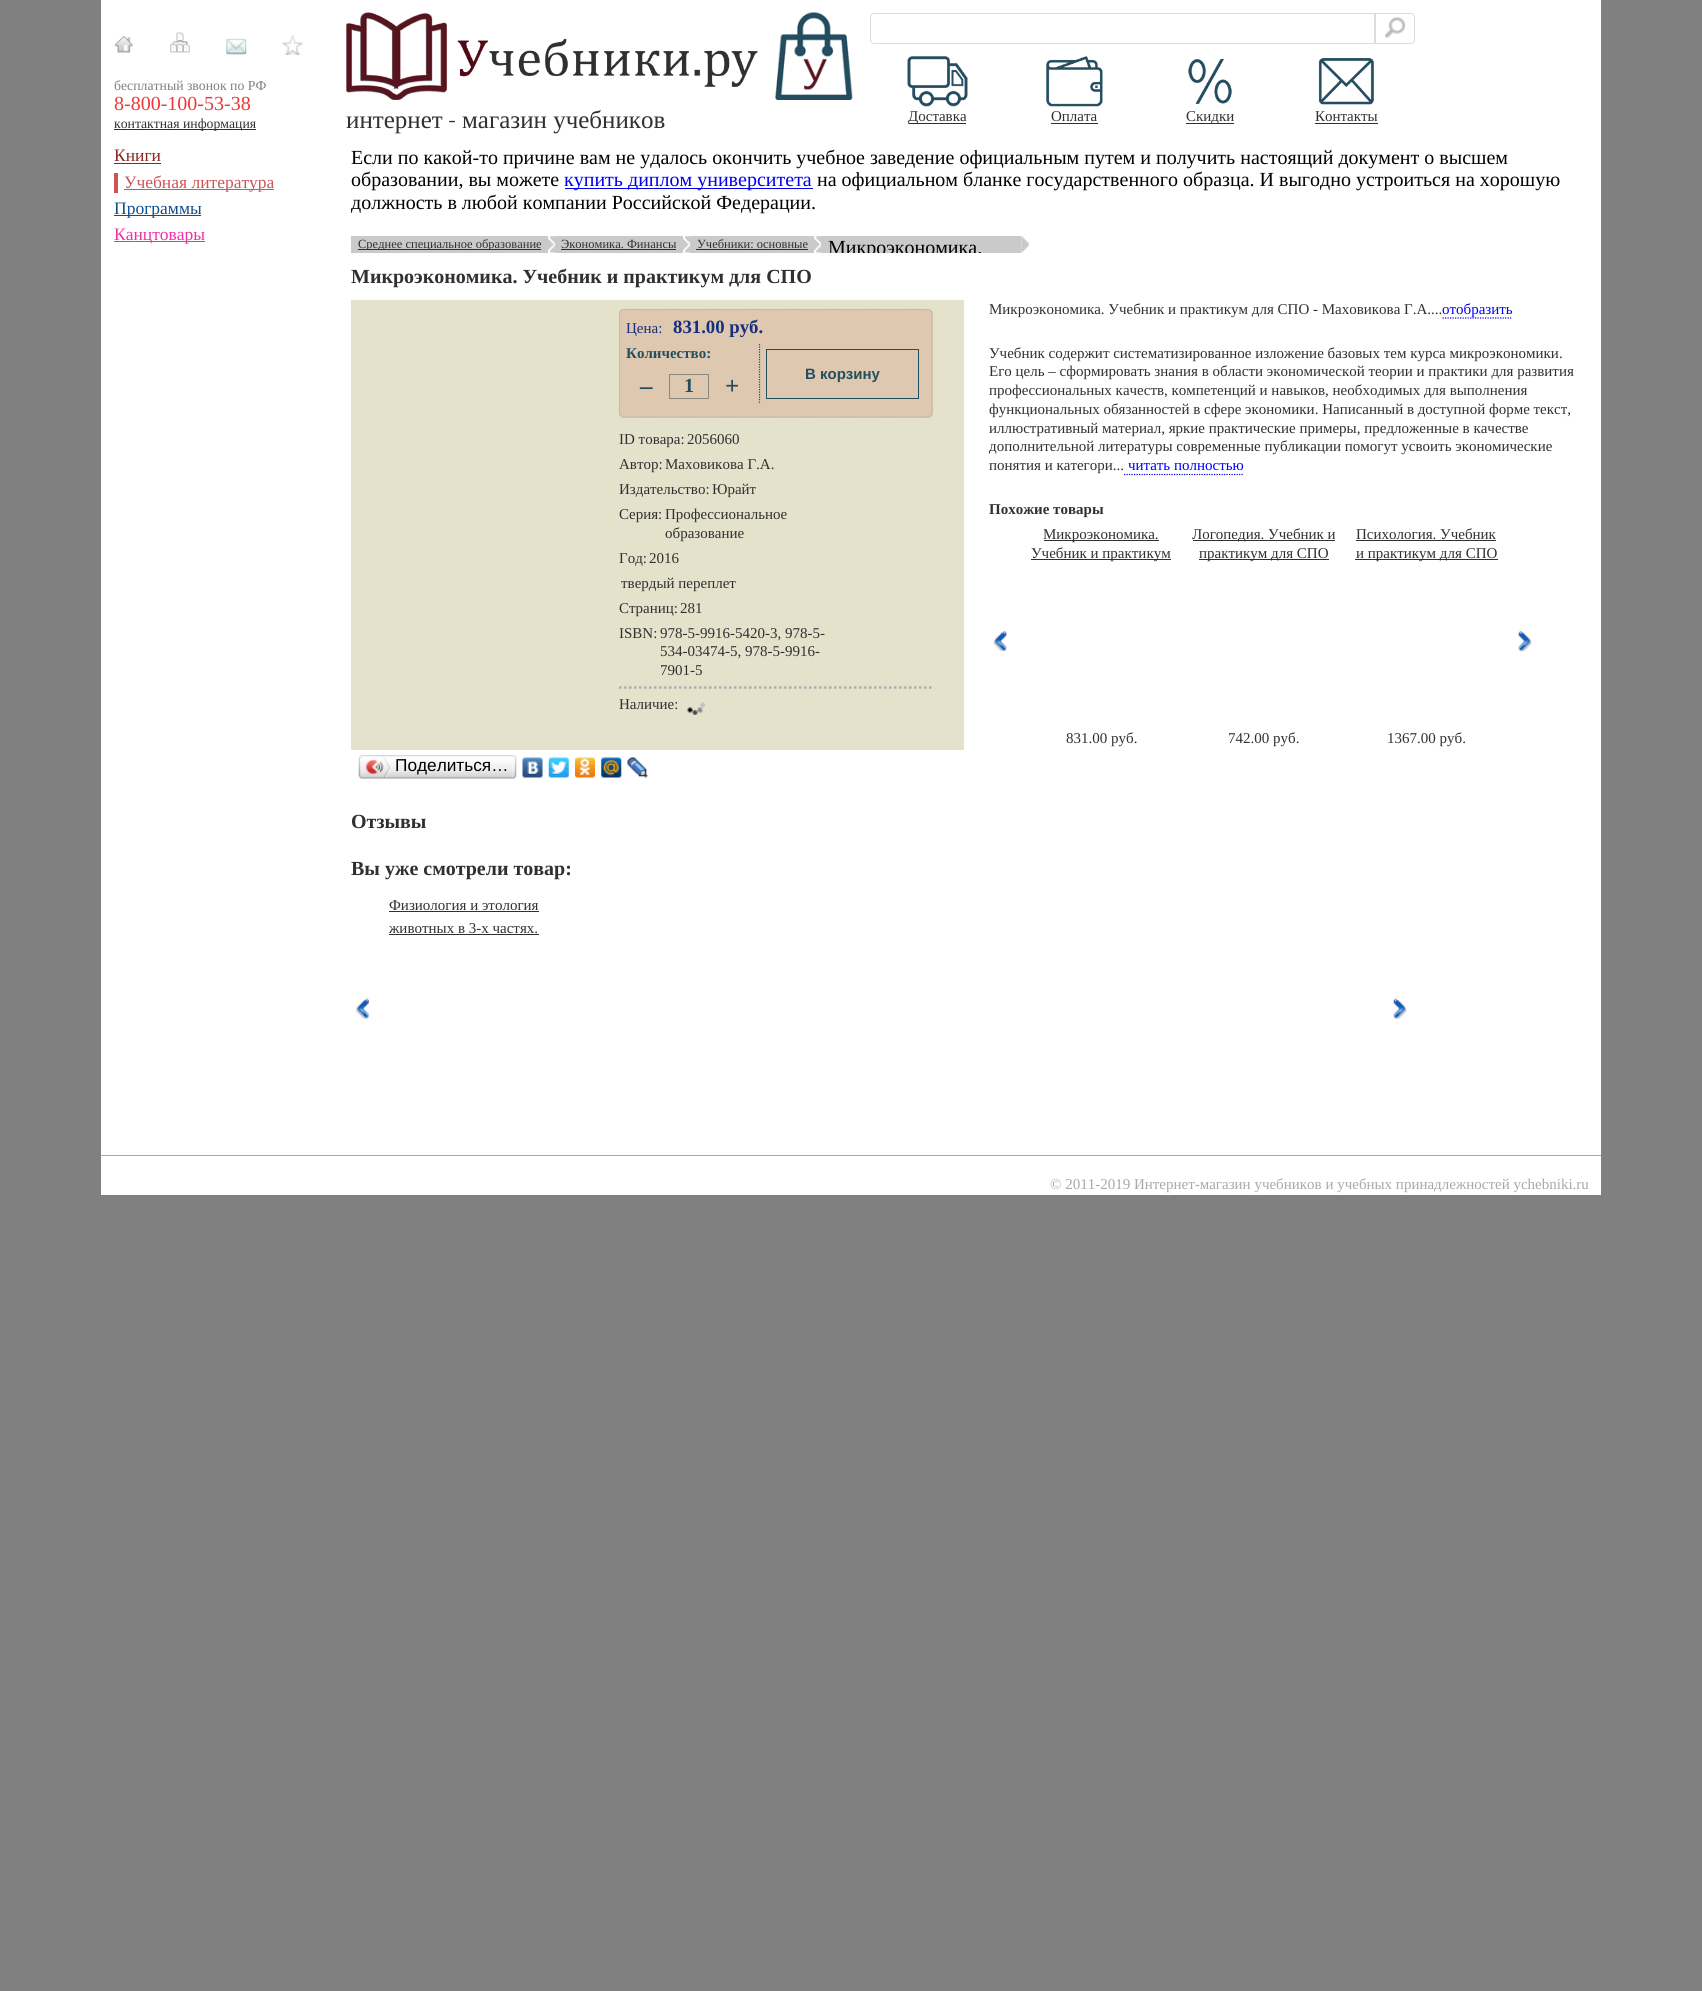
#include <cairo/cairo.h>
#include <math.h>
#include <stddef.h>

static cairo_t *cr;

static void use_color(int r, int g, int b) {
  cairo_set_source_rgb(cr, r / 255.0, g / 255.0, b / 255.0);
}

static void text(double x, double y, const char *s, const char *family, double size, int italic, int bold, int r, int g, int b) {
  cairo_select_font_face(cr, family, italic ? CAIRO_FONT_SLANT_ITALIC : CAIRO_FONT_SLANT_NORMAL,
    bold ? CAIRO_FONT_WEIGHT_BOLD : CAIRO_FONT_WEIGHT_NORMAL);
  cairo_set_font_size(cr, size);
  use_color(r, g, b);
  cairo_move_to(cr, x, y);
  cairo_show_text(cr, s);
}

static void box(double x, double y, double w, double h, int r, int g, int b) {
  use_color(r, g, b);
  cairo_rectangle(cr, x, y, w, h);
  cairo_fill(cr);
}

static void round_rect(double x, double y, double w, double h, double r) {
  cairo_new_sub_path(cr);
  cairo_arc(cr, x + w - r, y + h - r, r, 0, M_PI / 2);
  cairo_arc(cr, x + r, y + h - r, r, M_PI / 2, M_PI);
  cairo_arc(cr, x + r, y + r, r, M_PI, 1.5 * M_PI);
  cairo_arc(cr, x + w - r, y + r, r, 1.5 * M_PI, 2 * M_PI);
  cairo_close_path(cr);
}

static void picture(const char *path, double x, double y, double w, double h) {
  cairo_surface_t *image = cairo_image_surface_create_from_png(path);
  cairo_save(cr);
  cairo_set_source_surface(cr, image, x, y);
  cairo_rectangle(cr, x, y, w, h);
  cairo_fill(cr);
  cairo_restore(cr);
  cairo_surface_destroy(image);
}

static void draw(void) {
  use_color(128, 128, 128);
  cairo_paint(cr);
  box(101, 0, 1500, 1195, 255, 255, 255);
  picture("img_01.png", 775, 12, 78, 88);
  picture("img_02.png", 114, 36, 19, 17);
  picture("img_03.png", 170, 32, 20, 21);
  picture("img_04.png", 226, 38, 21, 17);
  picture("img_05.png", 282, 35, 21, 20);
  box(114, 129, 142, 1, 47, 48, 48);
  picture("img_06.png", 346, 12, 412, 88);
  cairo_new_path(cr);
  cairo_move_to(cr, 874, 13.5);
  cairo_line_to(cr, 1374.5, 13.5);
  cairo_line_to(cr, 1374.5, 43.5);
  cairo_line_to(cr, 874, 43.5);
  cairo_curve_to(cr, 872, 43.5, 870.5, 42, 870.5, 40);
  cairo_line_to(cr, 870.5, 17);
  cairo_curve_to(cr, 870.5, 15, 872, 13.5, 874, 13.5);
  cairo_close_path(cr);
  use_color(220, 220, 220);
  cairo_set_line_width(cr, 1);
  cairo_stroke(cr);
  cairo_new_path(cr);
  cairo_move_to(cr, 1375.5, 13.5);
  cairo_line_to(cr, 1411, 13.5);
  cairo_curve_to(cr, 1413, 13.5, 1414.5, 15, 1414.5, 17);
  cairo_line_to(cr, 1414.5, 40);
  cairo_curve_to(cr, 1414.5, 42, 1413, 43.5, 1411, 43.5);
  cairo_line_to(cr, 1375.5, 43.5);
  cairo_close_path(cr);
  cairo_stroke(cr);
  picture("img_07.png", 1385, 17, 20, 21);
  picture("img_08.png", 907, 56, 61, 51);
  box(909, 123, 57, 1, 47, 48, 48);
  picture("img_09.png", 1046, 56, 57, 51);
  box(1051, 123, 47, 1, 47, 48, 48);
  picture("img_10.png", 1188, 58, 44, 46);
  box(1186, 123, 48, 1, 47, 48, 48);
  picture("img_11.png", 1318, 58, 56, 47);
  box(1315, 123, 63, 1, 47, 48, 48);
  box(114, 163, 47, 1, 139, 35, 35);
  box(114, 173, 4, 20, 205, 85, 85);
  box(124, 189, 150, 1, 205, 85, 85);
  box(114, 215, 87, 1, 16, 78, 139);
  box(114, 241, 91, 1, 238, 48, 167);
  box(565, 188, 248, 1, 0, 0, 238);
  box(351, 236, 197, 17, 202, 202, 202);
  box(358, 249, 183, 1, 47, 48, 48);
  picture("img_12.png", 548, 236, 7, 17);
  box(555, 236, 128, 17, 202, 202, 202);
  box(561, 249, 115, 1, 47, 48, 48);
  picture("img_12.png", 683, 236, 7, 17);
  box(690, 236, 124, 17, 202, 202, 202);
  box(696, 249, 112, 1, 47, 48, 48);
  picture("img_13.png", 814, 236, 7, 17);
  box(821, 236, 200, 17, 202, 202, 202);
  picture("img_14.png", 1021, 236, 8, 17);
  box(351, 300, 613, 450, 229, 226, 204);
  use_color(222, 200, 176);
  round_rect(619, 309, 314, 109, 5);
  cairo_fill(cr);
  cairo_new_path(cr);
  cairo_move_to(cr, 624, 309.5);
  cairo_line_to(cr, 927.5, 309.5);
  cairo_curve_to(cr, 930, 309.5, 932, 311.5, 932, 314);
  cairo_line_to(cr, 932, 412.5);
  cairo_curve_to(cr, 932, 415, 930, 417, 927.5, 417);
  cairo_line_to(cr, 624, 417);
  cairo_curve_to(cr, 621.5, 417, 619.5, 415, 619.5, 412.5);
  cairo_line_to(cr, 619.5, 314);
  cairo_curve_to(cr, 619.5, 311.5, 621.5, 309.5, 624, 309.5);
  cairo_close_path(cr);
  use_color(174, 174, 174);
  cairo_set_line_width(cr, 1.2);
  cairo_set_dash(cr, (double[]){1.25, 1.25}, 2, 0);
  cairo_stroke(cr);
  cairo_new_path(cr);
  cairo_move_to(cr, 759.5, 344);
  cairo_line_to(cr, 759.5, 404);
  use_color(36, 77, 95);
  cairo_stroke(cr);
  cairo_rectangle(cr, 669.5, 374.5, 39, 24);
  use_color(138, 135, 126);
  cairo_set_line_width(cr, 1);
  cairo_set_dash(cr, NULL, 0, 0);
  cairo_stroke(cr);
  cairo_rectangle(cr, 766.5, 349.5, 152, 49);
  use_color(36, 77, 95);
  cairo_stroke(cr);
  cairo_new_path(cr);
  cairo_move_to(cr, 619, 687.5);
  cairo_line_to(cr, 932.5, 687.5);
  use_color(174, 174, 174);
  cairo_set_line_width(cr, 2.5);
  cairo_set_dash(cr, (double[]){2.5, 2.5}, 2, 0);
  cairo_stroke(cr);
  picture("img_15.png", 687, 702, 18, 13);
  picture("img_16.png", 362, 755, 151, 24);
  picture("img_17.png", 358, 755, 5, 24);
  picture("img_18.png", 366, 756, 25, 22);
  picture("img_19.png", 512, 755, 5, 24);
  picture("img_20.png", 522, 757, 21, 21);
  picture("img_21.png", 548, 757, 21, 21);
  picture("img_22.png", 575, 757, 20, 21);
  picture("img_23.png", 601, 757, 21, 21);
  picture("img_24.png", 627, 757, 21, 21);
  cairo_new_path(cr);
  cairo_move_to(cr, 1442.5, 318);
  cairo_line_to(cr, 1512.5, 318);
  use_color(0, 0, 255);
  cairo_set_line_width(cr, 1.2);
  cairo_set_dash(cr, (double[]){1.25, 1.25}, 2, 0);
  cairo_stroke(cr);
  cairo_new_path(cr);
  cairo_move_to(cr, 1124, 474.5);
  cairo_line_to(cr, 1244, 474.5);
  cairo_stroke(cr);
  picture("img_25.png", 993, 631, 14, 21);
  box(1044, 540, 115, 1, 47, 48, 48);
  box(1031, 559, 140, 1, 47, 48, 48);
  box(1193, 540, 142, 1, 47, 48, 48);
  box(1199, 559, 130, 1, 47, 48, 48);
  box(1356, 540, 140, 1, 47, 48, 48);
  box(1355, 559, 143, 1, 47, 48, 48);
  picture("img_26.png", 1518, 631, 14, 21);
  box(389, 911, 150, 1, 47, 48, 48);
  box(389, 934, 150, 1, 47, 48, 48);
  picture("img_27.png", 355, 998, 15, 21);
  picture("img_28.png", 1393, 998, 14, 21);
  box(101, 1155, 1500, 1, 170, 169, 169);
  text(114, 90, "бесплатный звонок по РФ", "Liberation Serif", 13.75, 0, 0, 127, 127, 127);
  text(114, 110, "8-800-100-53-38", "Liberation Serif", 20, 0, 0, 239, 55, 55);
  text(114, 128, "контактная информация", "Liberation Serif", 13.75, 0, 0, 47, 48, 48);
  text(346, 128, "интернет", "Liberation Serif", 25, 0, 0, 47, 48, 48);
  text(448, 128, "-", "Caladea", 25, 0, 0, 47, 48, 48);
  text(462, 128, "магазин учебников", "Liberation Serif", 25, 0, 0, 47, 48, 48);
  text(908, 121, "Доставка", "Liberation Serif", 15, 0, 0, 47, 48, 48);
  text(1051, 121, "Оплата", "Liberation Serif", 15, 0, 0, 47, 48, 48);
  text(1186, 121, "Скидки", "Liberation Serif", 15, 0, 0, 47, 48, 48);
  text(1315, 121, "Контакты", "Liberation Serif", 15, 0, 0, 47, 48, 48);
  text(114, 161, "Книги", "Liberation Serif", 17.5, 0, 0, 139, 35, 35);
  text(124, 188, "Учебная литература", "Liberation Serif", 17.5, 0, 0, 205, 85, 85);
  text(114, 214, "Программы", "Liberation Serif", 17.5, 0, 0, 16, 78, 139);
  text(114, 240, "Канцтовары", "Liberation Serif", 17.5, 0, 0, 238, 48, 167);
  text(351, 164, "Если по какой-то причине вам не удалось окончить учебное заведение официальным путем и получить настоящий документ о высшем", "Liberation Serif", 20, 0, 0, 0, 0, 0);
  text(351, 186, "образовании, вы можете", "Liberation Serif", 20, 0, 0, 0, 0, 0);
  text(564, 186, "купить диплом университета", "Liberation Serif", 20, 0, 0, 0, 0, 238);
  text(817, 186, "на официальном бланке государственного образца. И выгодно устроиться на хорошую", "Liberation Serif", 20, 0, 0, 0, 0, 0);
  text(351, 209, "должность в любой компании Российской Федерации.", "Liberation Serif", 20, 0, 0, 0, 0, 0);
  cairo_save(cr);
  cairo_rectangle(cr, 358, 236, 183, 14);
  cairo_clip(cr);
  text(358, 248, "Среднее специальное образование", "Liberation Serif", 12.5, 0, 0, 47, 48, 48);
  cairo_restore(cr);
  text(561, 248, "Экономика. Финансы", "Liberation Serif", 12.5, 0, 0, 47, 48, 48);
  text(697, 248, "Учебники: основные", "Liberation Serif", 12.5, 0, 0, 47, 48, 48);
  cairo_save(cr);
  cairo_rectangle(cr, 821, 236, 200, 17);
  cairo_clip(cr);
  text(828, 254, "Микроэкономика.", "Liberation Serif", 20, 0, 0, 0, 0, 0);
  cairo_restore(cr);
  text(351, 283, "Микроэкономика. Учебник и практикум для СПО", "Liberation Serif", 20, 0, 1, 47, 48, 48);
  text(626, 333, "Цена:", "Liberation Serif", 15, 0, 0, 21, 46, 128);
  text(673, 333, "831.00 руб.", "Liberation Serif", 18.75, 0, 1, 21, 46, 128);
  text(626, 358, "Количество:", "Liberation Serif", 15, 0, 1, 36, 77, 95);
  text(640, 394, "–", "Liberation Serif", 25, 0, 1, 36, 77, 95);
  text(684, 392, "1", "Liberation Serif", 20, 0, 1, 36, 77, 95);
  text(725, 394, "+", "Liberation Serif", 25, 0, 1, 36, 77, 95);
  text(805, 379, "В корзину", "Liberation Sans", 15, 0, 1, 36, 77, 95);
  text(619, 444, "ID товара:", "Liberation Serif", 15, 0, 0, 47, 48, 48);
  text(687, 444, "2056060", "Liberation Serif", 15, 0, 0, 47, 48, 48);
  text(619, 469, "Автор:", "Liberation Serif", 15, 0, 0, 47, 48, 48);
  text(665, 469, "Маховикова Г.А.", "Liberation Serif", 15, 0, 0, 47, 48, 48);
  text(619, 494, "Издательство:", "Liberation Serif", 15, 0, 0, 47, 48, 48);
  text(712, 494, "Юрайт", "Liberation Serif", 15, 0, 0, 47, 48, 48);
  text(619, 519, "Серия:", "Liberation Serif", 15, 0, 0, 47, 48, 48);
  text(665, 519, "Профессиональное", "Liberation Serif", 15, 0, 0, 47, 48, 48);
  text(665, 538, "образование", "Liberation Serif", 15, 0, 0, 47, 48, 48);
  text(619, 563, "Год:", "Liberation Serif", 15, 0, 0, 47, 48, 48);
  text(649, 563, "2016", "Liberation Serif", 15, 0, 0, 47, 48, 48);
  text(621, 588, "твердый переплет", "Liberation Serif", 15, 0, 0, 47, 48, 48);
  text(619, 613, "Страниц:", "Liberation Serif", 15, 0, 0, 47, 48, 48);
  text(680, 613, "281", "Liberation Serif", 15, 0, 0, 47, 48, 48);
  text(619, 638, "ISBN:", "Liberation Serif", 15, 0, 0, 47, 48, 48);
  text(660, 638, "978-5-9916-5420-3, 978-5-", "Liberation Serif", 15, 0, 0, 47, 48, 48);
  text(660, 656, "534-03474-5, 978-5-9916-", "Liberation Serif", 15, 0, 0, 47, 48, 48);
  text(660, 675, "7901-5", "Liberation Serif", 15, 0, 0, 47, 48, 48);
  text(619, 709, "Наличие:", "Liberation Serif", 15, 0, 0, 47, 48, 48);
  text(395, 771, "Поделиться…", "Liberation Sans", 17.25, 0, 0, 0, 0, 0);
  text(351, 828, "Отзывы", "Liberation Serif", 20, 0, 1, 47, 48, 48);
  text(989, 314, "Микроэкономика. Учебник и практикум для СПО - Маховикова Г.А....", "Liberation Serif", 15, 0, 0, 47, 48, 48);
  text(1442, 314, "отобразить", "Liberation Serif", 15, 0, 0, 0, 0, 255);
  text(989, 358, "Учебник содержит систематизированное изложение базовых тем курса микроэкономики.", "Liberation Serif", 15, 0, 0, 47, 48, 48);
  text(989, 376, "Его цель – сформировать знания в области экономической теории и практики для развития", "Liberation Serif", 15, 0, 0, 47, 48, 48);
  text(989, 395, "профессиональных качеств, компетенций и навыков, необходимых для выполнения", "Liberation Serif", 15, 0, 0, 47, 48, 48);
  text(989, 414, "функциональных обязанностей в сфере экономики. Написанный в доступной форме текст,", "Liberation Serif", 15, 0, 0, 47, 48, 48);
  text(989, 433, "иллюстративный материал, яркие практические примеры, предложенные в качестве", "Liberation Serif", 15, 0, 0, 47, 48, 48);
  text(989, 451, "дополнительной литературы современные публикации помогут усвоить экономические", "Liberation Serif", 15, 0, 0, 47, 48, 48);
  text(989, 470, "понятия и категори...", "Liberation Serif", 15, 0, 0, 47, 48, 48);
  text(1128, 470, "читать полностью", "Liberation Serif", 15, 0, 0, 0, 0, 255);
  text(989, 514, "Похожие товары", "Liberation Serif", 15, 0, 1, 47, 48, 48);
  text(1043, 539, "Микроэкономика.", "Liberation Serif", 15, 0, 0, 47, 48, 48);
  text(1031, 558, "Учебник и практикум", "Liberation Serif", 15, 0, 0, 47, 48, 48);
  text(1066, 743, "831.00 руб.", "Liberation Serif", 15, 0, 0, 47, 48, 48);
  text(1192, 539, "Логопедия. Учебник и", "Liberation Serif", 15, 0, 0, 47, 48, 48);
  text(1199, 558, "практикум для СПО", "Liberation Serif", 15, 0, 0, 47, 48, 48);
  text(1228, 743, "742.00 руб.", "Liberation Serif", 15, 0, 0, 47, 48, 48);
  text(1356, 539, "Психология. Учебник", "Liberation Serif", 15, 0, 0, 47, 48, 48);
  text(1356, 558, "и практикум для СПО", "Liberation Serif", 15, 0, 0, 47, 48, 48);
  text(1387, 743, "1367.00 руб.", "Liberation Serif", 15, 0, 0, 47, 48, 48);
  text(351, 875, "Вы уже смотрели товар:", "Liberation Serif", 20, 0, 1, 47, 48, 48);
  text(389, 910, "Физиология и этология", "Liberation Serif", 15, 0, 0, 47, 48, 48);
  text(389, 933, "животных в 3-х частях.", "Liberation Serif", 15, 0, 0, 47, 48, 48);
  text(1050, 1189, "© 2011-2019 Интернет-магазин учебников и учебных принадлежностей ychebniki.ru", "Liberation Serif", 15, 0, 0, 170, 169, 169);
}

int main(void) {
  cairo_surface_t *surface = cairo_image_surface_create(CAIRO_FORMAT_RGB24, 1702, 1991);
  cr = cairo_create(surface);
  cairo_font_options_t *options = cairo_font_options_create();
  cairo_font_options_set_hint_metrics(options, CAIRO_HINT_METRICS_OFF);
  cairo_font_options_set_hint_style(options, CAIRO_HINT_STYLE_NONE);
  cairo_set_font_options(cr, options);
  cairo_set_miter_limit(cr, 4);
  draw();
  cairo_surface_write_to_png(surface, "out.png");
  cairo_font_options_destroy(options);
  cairo_destroy(cr);
  cairo_surface_destroy(surface);
  return 0;
}
